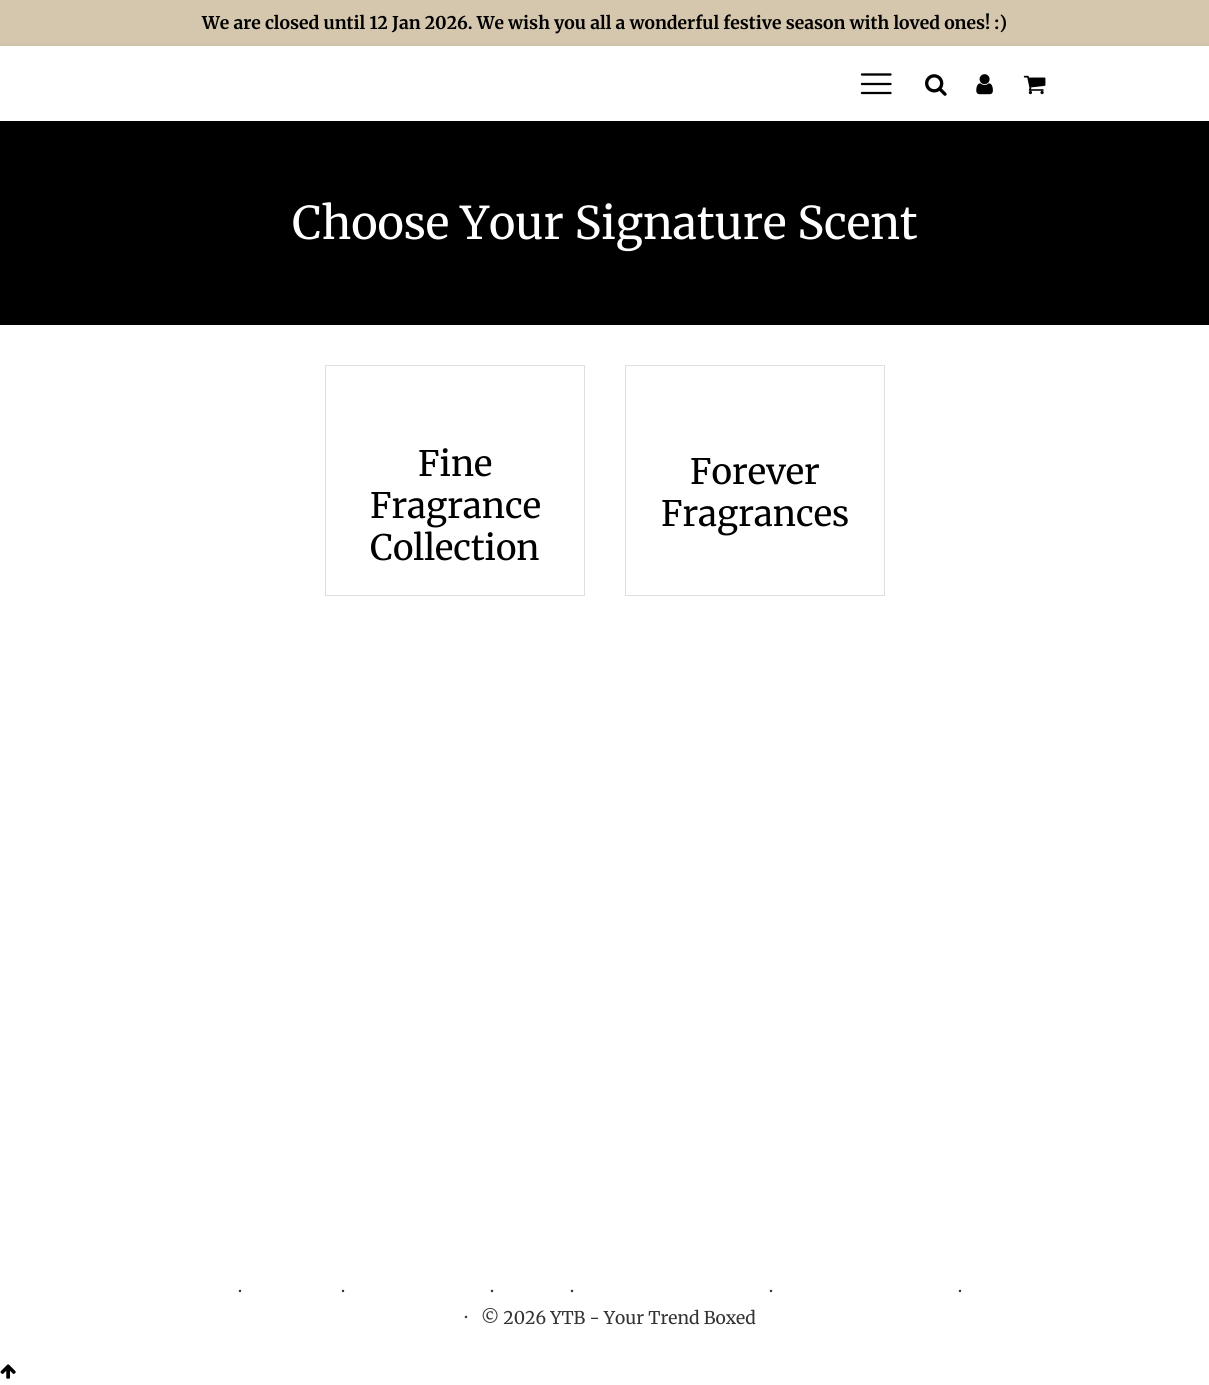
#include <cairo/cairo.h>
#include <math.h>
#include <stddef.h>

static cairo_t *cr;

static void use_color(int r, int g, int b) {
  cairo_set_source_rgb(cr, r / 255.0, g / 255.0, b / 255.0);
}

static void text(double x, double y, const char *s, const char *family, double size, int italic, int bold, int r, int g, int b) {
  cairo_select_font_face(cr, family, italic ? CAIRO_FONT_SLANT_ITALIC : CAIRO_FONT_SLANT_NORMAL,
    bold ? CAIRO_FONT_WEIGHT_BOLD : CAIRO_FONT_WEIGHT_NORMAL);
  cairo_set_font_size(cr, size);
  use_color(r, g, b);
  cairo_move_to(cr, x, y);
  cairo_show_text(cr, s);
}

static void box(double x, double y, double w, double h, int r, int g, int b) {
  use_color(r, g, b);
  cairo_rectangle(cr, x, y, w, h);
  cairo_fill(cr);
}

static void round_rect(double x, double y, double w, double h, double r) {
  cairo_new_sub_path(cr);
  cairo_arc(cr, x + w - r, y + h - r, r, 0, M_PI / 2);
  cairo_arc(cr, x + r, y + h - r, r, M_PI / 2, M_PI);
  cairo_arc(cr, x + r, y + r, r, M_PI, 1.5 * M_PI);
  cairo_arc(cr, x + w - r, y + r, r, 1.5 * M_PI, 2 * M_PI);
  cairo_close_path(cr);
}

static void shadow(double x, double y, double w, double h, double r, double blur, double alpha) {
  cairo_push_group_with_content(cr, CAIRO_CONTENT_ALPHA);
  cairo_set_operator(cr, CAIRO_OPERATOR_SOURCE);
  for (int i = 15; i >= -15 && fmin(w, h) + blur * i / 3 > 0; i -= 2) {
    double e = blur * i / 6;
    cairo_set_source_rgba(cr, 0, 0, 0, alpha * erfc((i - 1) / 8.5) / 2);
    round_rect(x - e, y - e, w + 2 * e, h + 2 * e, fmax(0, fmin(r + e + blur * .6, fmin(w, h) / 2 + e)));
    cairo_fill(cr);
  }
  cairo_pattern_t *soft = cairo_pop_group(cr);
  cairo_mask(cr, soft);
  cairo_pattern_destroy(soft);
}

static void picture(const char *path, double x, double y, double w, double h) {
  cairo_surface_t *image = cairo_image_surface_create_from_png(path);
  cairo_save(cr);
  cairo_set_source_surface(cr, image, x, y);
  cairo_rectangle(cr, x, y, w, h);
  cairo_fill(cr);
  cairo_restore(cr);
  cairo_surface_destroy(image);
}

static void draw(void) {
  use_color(255, 255, 255);
  cairo_paint(cr);
  box(0, 0, 1209, 46, 213, 199, 173);
  box(0, 121, 1209, 204, 0, 0, 0);
  use_color(0, 0, 0);
  shadow(-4, 46, 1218, 83, 0, 4, 0.06);
  box(0, 46, 1209, 75, 255, 255, 255);
  cairo_new_path(cr);
  cairo_move_to(cr, 862, 74.5);
  cairo_line_to(cr, 890.5, 74.5);
  cairo_move_to(cr, 862, 84);
  cairo_line_to(cr, 890.5, 84);
  cairo_move_to(cr, 862, 93);
  cairo_line_to(cr, 890.5, 93);
  use_color(0, 0, 0);
  cairo_set_line_width(cr, 2.3);
  cairo_set_line_cap(cr, CAIRO_LINE_CAP_ROUND);
  cairo_stroke(cr);
  picture("img_01.png", 925, 74, 22, 22);
  picture("img_02.png", 976, 74, 17, 21);
  picture("img_03.png", 1023, 75, 23, 20);
  cairo_rectangle(cr, 325.5, 365.5, 259, 230);
  use_color(223, 223, 223);
  cairo_set_line_width(cr, 1);
  cairo_set_line_cap(cr, CAIRO_LINE_CAP_BUTT);
  cairo_stroke(cr);
  cairo_rectangle(cr, 625.5, 365.5, 259, 230);
  cairo_stroke(cr);
  picture("img_04.png", 0, 1364, 16, 15);
  text(202, 29, "We are closed until 12 Jan 2026. We wish you all a wonderful festive season with loved ones! :)", "Merriweather", 17.5, 0, 1, 0, 0, 0);
  text(292, 239, "Choose Your Signature Scent", "Merriweather", 45, 0, 0, 255, 255, 255);
  text(418, 476, "Fine", "Merriweather", 35, 0, 0, 0, 0, 0);
  text(370, 518, "Fragrance", "Merriweather", 35, 0, 0, 0, 0, 0);
  text(370, 560, "Collection", "Merriweather", 35, 0, 0, 0, 0, 0);
  text(690, 484, "Forever", "Merriweather", 35, 0, 0, 0, 0, 0);
  text(661, 526, "Fragrances", "Merriweather", 35, 0, 0, 0, 0, 0);
  text(239, 1298, "·", "Merriweather", 17.5, 0, 0, 51, 51, 51);
  text(342, 1298, "·", "Merriweather", 17.5, 0, 0, 51, 51, 51);
  text(491, 1298, "·", "Merriweather", 17.5, 0, 0, 51, 51, 51);
  text(571, 1298, "·", "Merriweather", 17.5, 0, 0, 51, 51, 51);
  text(770, 1298, "·", "Merriweather", 17.5, 0, 0, 51, 51, 51);
  text(959, 1298, "·", "Merriweather", 17.5, 0, 0, 51, 51, 51);
  text(465, 1324, "·", "Merriweather", 17.5, 0, 0, 51, 51, 51);
  text(481, 1324, "© 2026 YTB - Your Trend Boxed", "Merriweather", 17.5, 0, 0, 51, 51, 51);
}

int main(void) {
  cairo_surface_t *surface = cairo_image_surface_create(CAIRO_FORMAT_RGB24, 1209, 1385);
  cr = cairo_create(surface);
  cairo_font_options_t *options = cairo_font_options_create();
  cairo_font_options_set_hint_metrics(options, CAIRO_HINT_METRICS_OFF);
  cairo_font_options_set_hint_style(options, CAIRO_HINT_STYLE_NONE);
  cairo_set_font_options(cr, options);
  cairo_set_miter_limit(cr, 4);
  draw();
  cairo_surface_write_to_png(surface, "out.png");
  cairo_font_options_destroy(options);
  cairo_destroy(cr);
  cairo_surface_destroy(surface);
  return 0;
}
